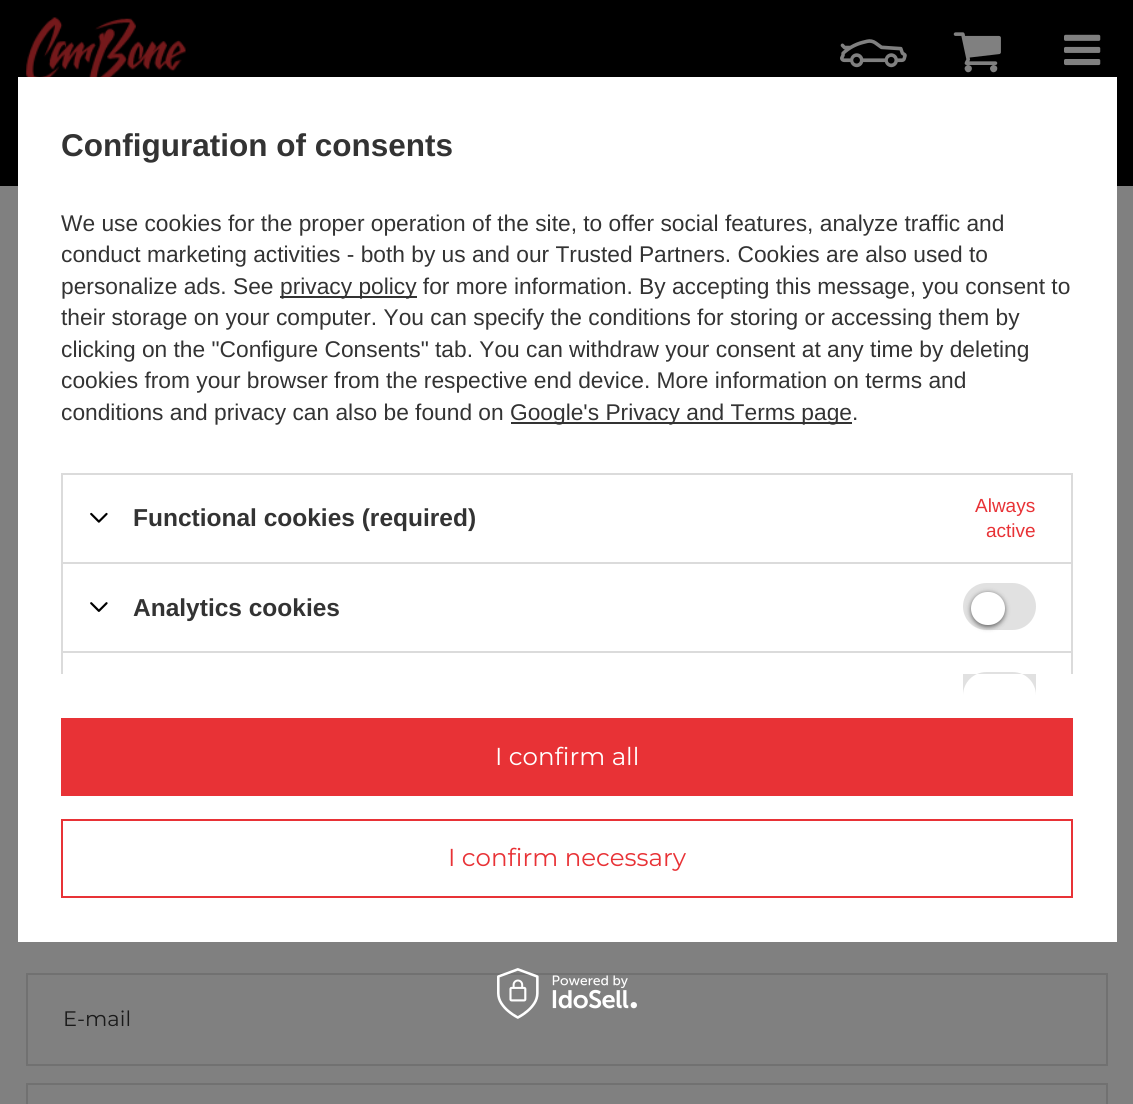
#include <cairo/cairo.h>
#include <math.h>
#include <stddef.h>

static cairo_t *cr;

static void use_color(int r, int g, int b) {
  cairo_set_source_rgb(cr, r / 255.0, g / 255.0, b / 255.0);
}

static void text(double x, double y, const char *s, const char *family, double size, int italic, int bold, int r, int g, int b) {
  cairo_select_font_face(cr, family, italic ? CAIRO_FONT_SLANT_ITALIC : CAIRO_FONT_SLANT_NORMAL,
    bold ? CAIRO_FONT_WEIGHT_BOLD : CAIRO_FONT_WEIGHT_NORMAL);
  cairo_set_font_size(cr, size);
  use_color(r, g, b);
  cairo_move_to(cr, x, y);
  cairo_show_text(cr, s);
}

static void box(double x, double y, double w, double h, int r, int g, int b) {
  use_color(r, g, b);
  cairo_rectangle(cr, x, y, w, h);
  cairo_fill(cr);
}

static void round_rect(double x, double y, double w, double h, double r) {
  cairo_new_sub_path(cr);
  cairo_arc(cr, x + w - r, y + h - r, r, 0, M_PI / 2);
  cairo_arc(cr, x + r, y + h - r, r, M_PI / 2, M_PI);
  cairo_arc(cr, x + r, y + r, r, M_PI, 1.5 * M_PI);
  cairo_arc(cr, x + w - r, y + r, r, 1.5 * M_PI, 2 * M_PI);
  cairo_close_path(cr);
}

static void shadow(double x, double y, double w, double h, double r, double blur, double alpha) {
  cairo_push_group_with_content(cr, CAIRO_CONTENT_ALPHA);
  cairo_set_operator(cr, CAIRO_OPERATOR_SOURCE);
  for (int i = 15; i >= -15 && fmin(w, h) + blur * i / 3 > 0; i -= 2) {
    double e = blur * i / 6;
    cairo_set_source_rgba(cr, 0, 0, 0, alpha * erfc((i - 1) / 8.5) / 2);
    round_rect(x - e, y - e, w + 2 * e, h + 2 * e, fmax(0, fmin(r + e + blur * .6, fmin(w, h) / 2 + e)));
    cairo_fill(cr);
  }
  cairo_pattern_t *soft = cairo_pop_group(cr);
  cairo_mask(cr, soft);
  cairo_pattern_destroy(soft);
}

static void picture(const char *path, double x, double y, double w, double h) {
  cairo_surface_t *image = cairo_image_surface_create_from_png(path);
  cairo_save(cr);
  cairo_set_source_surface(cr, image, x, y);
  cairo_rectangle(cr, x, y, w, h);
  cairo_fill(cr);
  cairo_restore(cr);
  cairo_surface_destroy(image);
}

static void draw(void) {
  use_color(128, 128, 128);
  cairo_paint(cr);
  box(0, 0, 1133, 186, 0, 0, 0);
  box(18, 77, 1099, 865, 255, 255, 255);
  box(280, 296, 137, 2, 51, 51, 51);
  box(511, 422, 341, 2, 51, 51, 51);
  box(61, 473, 1012, 2, 219, 219, 219);
  box(1071, 473, 2, 89, 219, 219, 219);
  box(61, 473, 2, 89, 219, 219, 219);
  picture("img_01.png", 90, 512, 18, 11);
  box(61, 562, 1012, 2, 219, 219, 219);
  box(1071, 562, 2, 89, 219, 219, 219);
  box(61, 562, 2, 89, 219, 219, 219);
  picture("img_02.png", 90, 602, 18, 10);
  use_color(225, 225, 225);
  round_rect(963, 583, 73, 47, 23.5);
  cairo_fill(cr);
  use_color(0, 0, 0);
  shadow(971, 593, 34, 34, 17, 2.5, 0.56);
  use_color(255, 255, 255);
  round_rect(971, 592, 34, 33, 16.5);
  cairo_fill(cr);
  box(61, 718, 1012, 78, 232, 50, 54);
  cairo_save(cr);
  cairo_rectangle(cr, 44, 121, 1046, 553);
  cairo_clip(cr);
  cairo_rectangle(cr, 62, 652, 1010, 89);
  use_color(219, 219, 219);
  cairo_stroke(cr);
  cairo_restore(cr);
  use_color(225, 225, 225);
  cairo_new_path(cr);
  cairo_move_to(cr, 986.5, 672);
  cairo_line_to(cr, 1012.5, 672);
  cairo_curve_to(cr, 1025.5, 672, 1036, 682.5, 1036, 695.5);
  cairo_line_to(cr, 1036, 674);
  cairo_line_to(cr, 963, 674);
  cairo_line_to(cr, 963, 695.5);
  cairo_curve_to(cr, 963, 682.5, 973.5, 672, 986.5, 672);
  cairo_close_path(cr);
  cairo_fill(cr);
  cairo_rectangle(cr, 62, 820, 1010, 77);
  use_color(232, 50, 54);
  cairo_stroke(cr);
  cairo_rectangle(cr, 27, 974, 1080, 91);
  use_color(113, 113, 113);
  cairo_stroke(cr);
  picture("img_03.png", 497, 968, 140, 51);
  picture("img_04.png", 26, 17, 160, 60);
  picture("img_05.png", 840, 39, 67, 29);
  picture("img_06.png", 953, 32, 48, 41);
  picture("img_07.png", 1064, 34, 37, 32);
  cairo_rectangle(cr, 27, 1084, 1080, 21);
  cairo_stroke(cr);
  text(61, 156, "Configuration of consents", "Liberation Sans", 31.5, 0, 1, 51, 51, 51);
  text(61, 231, "We use cookies for the proper operation of the site, to offer social features, analyze traffic and", "Liberation Sans", 22.75, 0, 0, 51, 51, 51);
  text(61, 262, "conduct marketing activities - both by us and our Trusted Partners. Cookies are also used to", "Liberation Sans", 22.75, 0, 0, 51, 51, 51);
  text(61, 294, "personalize ads. See", "Liberation Sans", 22.75, 0, 0, 51, 51, 51);
  text(280, 294, "privacy policy for more information. By accepting this message, you consent to", "Liberation Sans", 22.75, 0, 0, 51, 51, 51);
  text(61, 325, "their storage on your computer. You can specify the conditions for storing or accessing them by", "Liberation Sans", 22.75, 0, 0, 51, 51, 51);
  text(61, 357, "clicking on the \"Configure Consents\" tab. You can withdraw your consent at any time by deleting", "Liberation Sans", 22.75, 0, 0, 51, 51, 51);
  text(61, 388, "cookies from your browser from the respective end device. More information on terms and", "Liberation Sans", 22.75, 0, 0, 51, 51, 51);
  text(61, 420, "conditions and privacy can also be found on", "Liberation Sans", 22.75, 0, 0, 51, 51, 51);
  text(510, 420, "Google's Privacy and Terms page.", "Liberation Sans", 22.75, 0, 0, 51, 51, 51);
  text(133, 526, "Functional cookies (required)", "Liberation Sans", 24.5, 0, 1, 51, 51, 51);
  text(975, 512, "Always", "Liberation Sans", 19, 0, 0, 232, 50, 54);
  text(986, 537, "active", "Liberation Sans", 19, 0, 0, 232, 50, 54);
  text(133, 616, "Analytics cookies", "Liberation Sans", 24.5, 0, 1, 51, 51, 51);
  text(495, 765, "I confirm all", "Montserrat Thin", 24.5, 0, 0, 255, 255, 255);
  text(448, 866, "I confirm necessary", "Montserrat Thin", 24.5, 0, 0, 232, 50, 54);
  text(63, 1026, "E-mail", "Montserrat Thin", 21, 0, 0, 26, 26, 26);
}

int main(void) {
  cairo_surface_t *surface = cairo_image_surface_create(CAIRO_FORMAT_RGB24, 1133, 1104);
  cr = cairo_create(surface);
  cairo_font_options_t *options = cairo_font_options_create();
  cairo_font_options_set_hint_metrics(options, CAIRO_HINT_METRICS_OFF);
  cairo_font_options_set_hint_style(options, CAIRO_HINT_STYLE_NONE);
  cairo_set_font_options(cr, options);
  cairo_set_miter_limit(cr, 4);
  draw();
  cairo_surface_write_to_png(surface, "out.png");
  cairo_font_options_destroy(options);
  cairo_destroy(cr);
  cairo_surface_destroy(surface);
  return 0;
}
